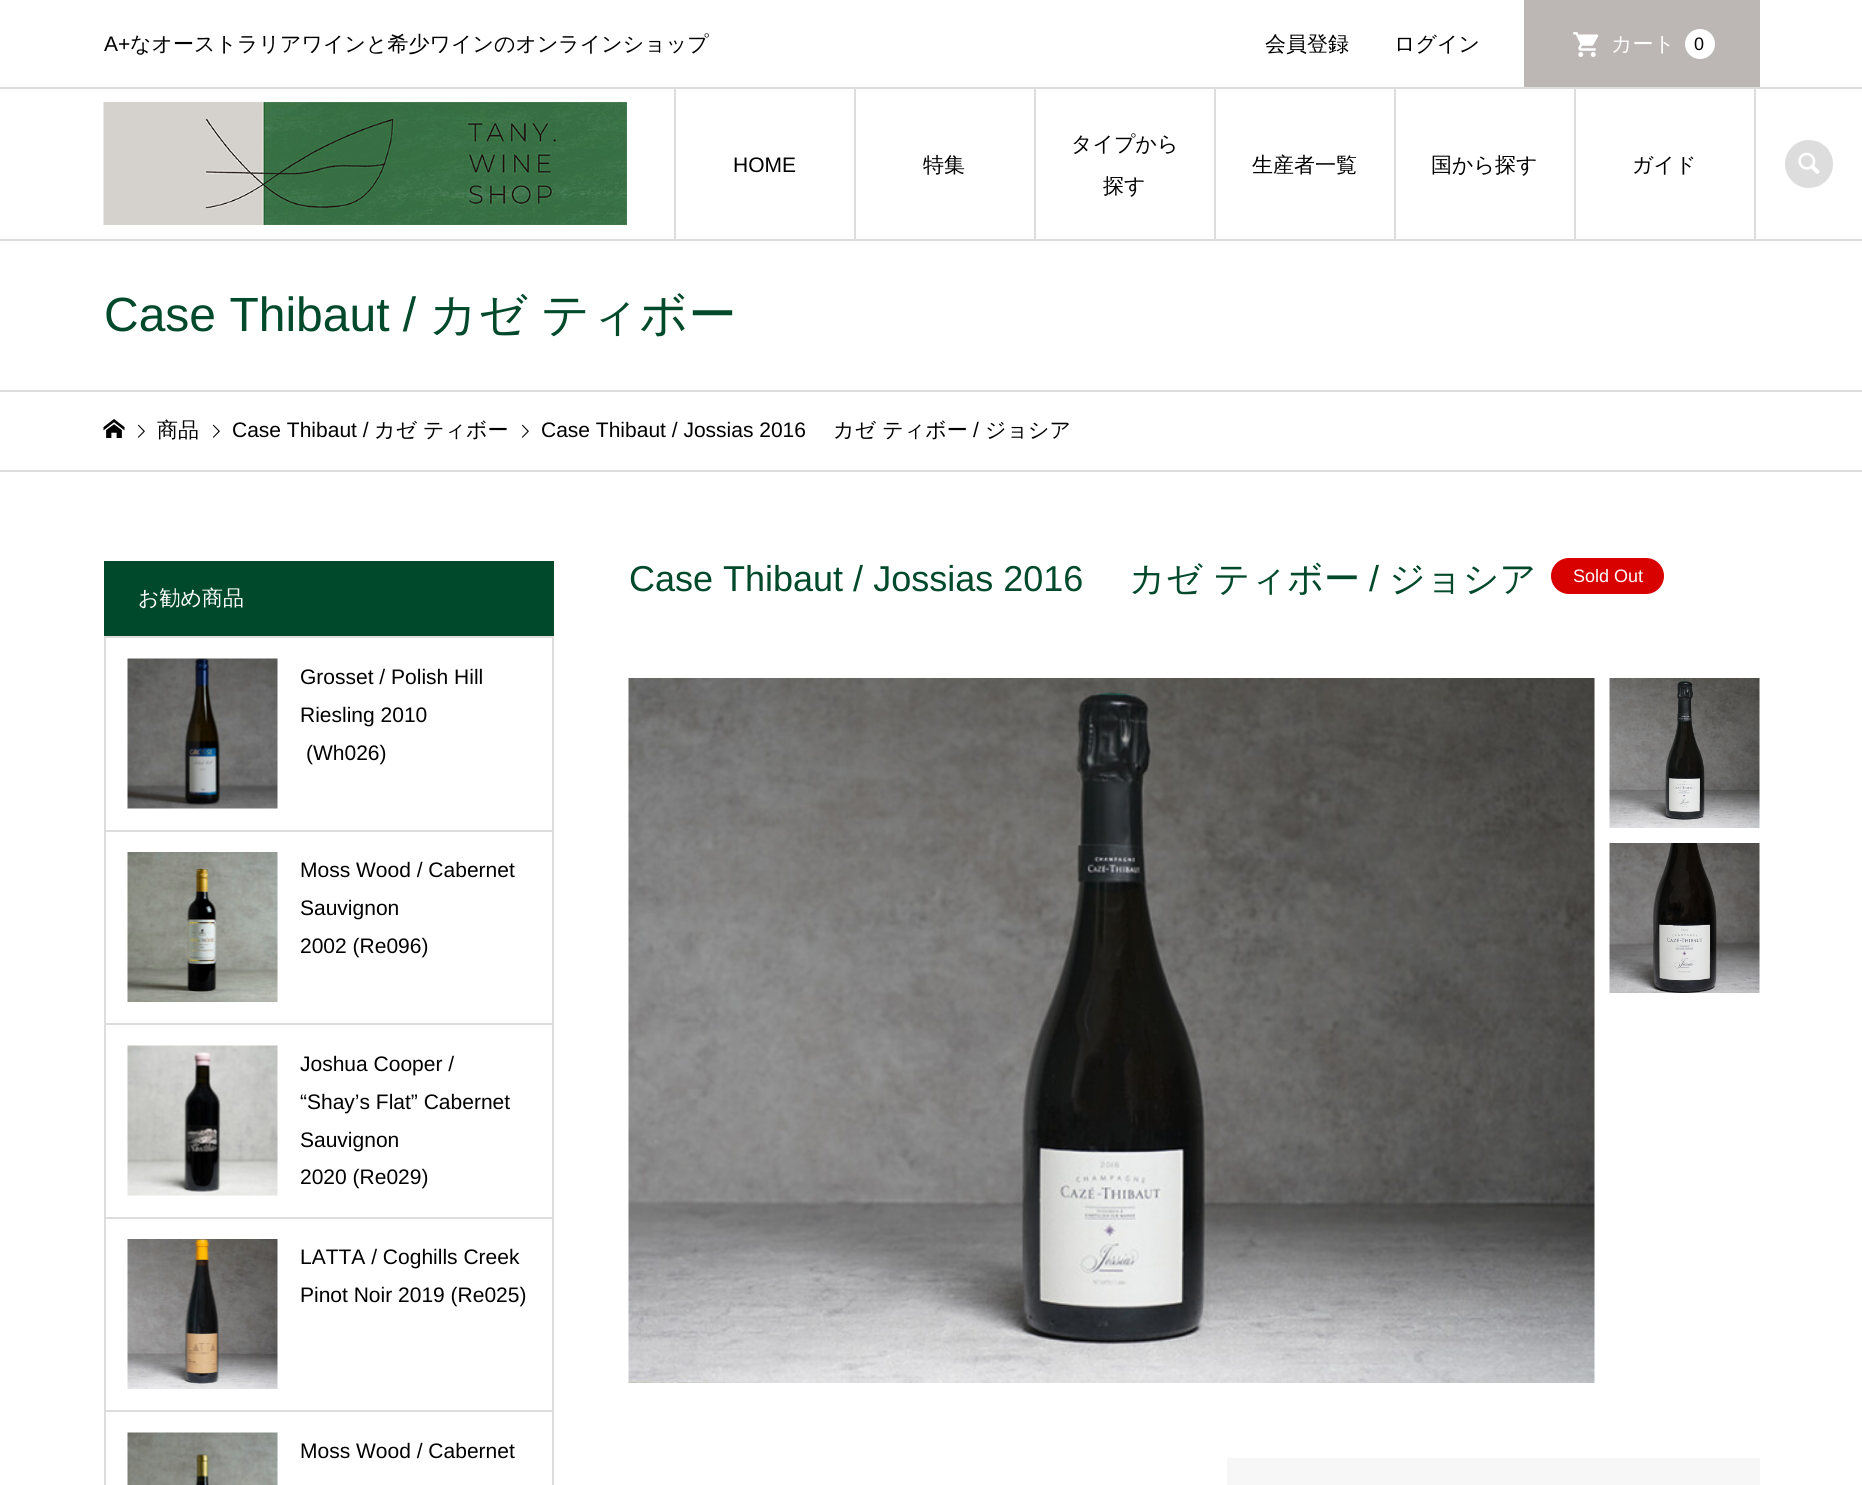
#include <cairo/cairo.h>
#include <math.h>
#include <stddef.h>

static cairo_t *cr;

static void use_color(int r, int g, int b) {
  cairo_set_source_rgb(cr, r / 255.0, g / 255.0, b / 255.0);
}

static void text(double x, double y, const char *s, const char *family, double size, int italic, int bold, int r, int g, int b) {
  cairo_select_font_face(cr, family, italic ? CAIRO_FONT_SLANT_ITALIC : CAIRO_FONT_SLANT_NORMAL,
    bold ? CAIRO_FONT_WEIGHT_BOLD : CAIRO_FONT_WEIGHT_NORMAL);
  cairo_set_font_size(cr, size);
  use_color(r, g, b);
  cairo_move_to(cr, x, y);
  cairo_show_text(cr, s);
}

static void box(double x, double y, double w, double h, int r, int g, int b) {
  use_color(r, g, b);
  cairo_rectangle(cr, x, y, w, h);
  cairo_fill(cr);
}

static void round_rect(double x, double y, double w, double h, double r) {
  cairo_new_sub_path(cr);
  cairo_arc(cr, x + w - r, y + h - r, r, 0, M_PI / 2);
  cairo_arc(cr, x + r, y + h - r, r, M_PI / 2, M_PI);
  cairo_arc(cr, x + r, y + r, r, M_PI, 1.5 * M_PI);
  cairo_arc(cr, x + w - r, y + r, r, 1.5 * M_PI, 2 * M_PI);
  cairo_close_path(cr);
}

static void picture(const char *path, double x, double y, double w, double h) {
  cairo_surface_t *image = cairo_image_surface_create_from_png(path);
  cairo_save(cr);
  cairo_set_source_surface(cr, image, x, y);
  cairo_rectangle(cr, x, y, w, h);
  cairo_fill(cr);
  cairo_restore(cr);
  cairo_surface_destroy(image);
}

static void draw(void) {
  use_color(255, 255, 255);
  cairo_paint(cr);
  box(0, 87, 1862, 2, 221, 221, 221);
  box(1524, 0, 236, 87, 188, 182, 180);
  picture("img_01.png", 1573, 32, 26, 25);
  use_color(255, 255, 255);
  cairo_arc(cr, 1700, 44, 15, 0, 2 * M_PI);
  cairo_fill(cr);
  box(0, 239, 1862, 2, 221, 221, 221);
  picture("img_02.png", 103, 102, 525, 123);
  box(674, 89, 2, 150, 221, 221, 221);
  box(854, 89, 2, 151, 221, 221, 221);
  box(1034, 89, 2, 151, 221, 221, 221);
  box(1214, 89, 2, 151, 221, 221, 221);
  box(1394, 89, 2, 151, 221, 221, 221);
  box(1574, 89, 2, 151, 221, 221, 221);
  box(1754, 89, 2, 151, 221, 221, 221);
  cairo_arc(cr, 1809, 164, 24, 0, 2 * M_PI);
  cairo_fill(cr);
  picture("img_03.png", 1798, 152, 22, 22);
  box(0, 390, 1862, 2, 221, 221, 221);
  box(0, 470, 1862, 2, 221, 221, 221);
  picture("img_04.png", 103, 419, 22, 19);
  picture("img_05.png", 138, 424, 7, 14);
  picture("img_05.png", 213, 424, 7, 14);
  picture("img_05.png", 522, 424, 7, 14);
  use_color(217, 0, 0);
  round_rect(1551, 558, 113, 36, 18);
  cairo_fill(cr);
  picture("img_06.png", 628, 678, 967, 705);
  picture("img_07.png", 1609, 678, 151, 150);
  picture("img_08.png", 1609, 843, 151, 150);
  box(1227, 1458, 533, 27, 247, 247, 247);
  box(104, 561, 450, 75, 0, 73, 42);
  box(552, 636, 2, 849, 221, 221, 221);
  box(104, 636, 2, 849, 221, 221, 221);
  box(105, 636, 447, 2, 221, 221, 221);
  picture("img_09.png", 127, 658, 151, 151);
  box(105, 830, 447, 2, 221, 221, 221);
  picture("img_10.png", 127, 852, 151, 150);
  box(105, 1023, 447, 2, 221, 221, 221);
  picture("img_11.png", 127, 1045, 151, 151);
  box(105, 1217, 447, 2, 221, 221, 221);
  picture("img_12.png", 127, 1239, 151, 150);
  box(105, 1410, 447, 2, 221, 221, 221);
  picture("img_13.png", 127, 1432, 151, 53);
  text(104, 51, "A+", "Liberation Sans", 21, 0, 0, 0, 0, 0);
  text(130, 51, "なオーストラリアワインと希少ワインのオンラインショップ", "WenQuanYi Zen Hei Medium", 21, 0, 0, 0, 0, 0);
  text(1265, 51, "会員登録", "WenQuanYi Zen Hei Medium", 21, 0, 0, 0, 0, 0);
  text(1394, 51, "ログイン", "WenQuanYi Zen Hei Medium", 21, 0, 0, 0, 0, 0);
  text(1611, 51, "カート", "WenQuanYi Zen Hei Medium", 21, 0, 0, 255, 255, 255);
  text(1694, 50, "0", "Liberation Sans", 18, 0, 0, 0, 0, 0);
  text(733, 172, "HOME", "Liberation Sans", 21, 0, 0, 0, 0, 0);
  text(923, 172, "特集", "WenQuanYi Zen Hei Medium", 21, 0, 0, 0, 0, 0);
  text(1071, 151, "タイプから", "WenQuanYi Zen Hei Medium", 21, 0, 0, 0, 0, 0);
  text(1103, 193, "探す", "WenQuanYi Zen Hei Medium", 21, 0, 0, 0, 0, 0);
  text(1252, 172, "生産者一覧", "WenQuanYi Zen Hei Medium", 21, 0, 0, 0, 0, 0);
  text(1431, 172, "国から探す", "WenQuanYi Zen Hei Medium", 21, 0, 0, 0, 0, 0);
  text(1632, 172, "ガイド", "WenQuanYi Zen Hei Medium", 21, 0, 0, 0, 0, 0);
  text(104, 331, "Case Thibaut /", "Liberation Sans", 48, 0, 0, 0, 73, 42);
  text(429, 331, "カゼ", "WenQuanYi Zen Hei Medium", 48, 0, 0, 0, 73, 42);
  text(541, 331, "ティボー", "WenQuanYi Zen Hei Medium", 48, 0, 0, 0, 73, 42);
  text(157, 437, "商品", "WenQuanYi Zen Hei Medium", 21, 0, 0, 0, 0, 0);
  text(232, 437, "Case Thibaut /", "Liberation Sans", 21, 0, 0, 0, 0, 0);
  text(374, 437, "カゼ", "WenQuanYi Zen Hei Medium", 21, 0, 0, 0, 0, 0);
  text(423, 437, "ティボー", "WenQuanYi Zen Hei Medium", 21, 0, 0, 0, 0, 0);
  text(541, 437, "Case Thibaut / Jossias 2016", "Liberation Sans", 21, 0, 0, 0, 0, 0);
  text(833, 437, "カゼ ティボー", "WenQuanYi Zen Hei Medium", 21, 0, 0, 0, 0, 0);
  text(973, 437, "/", "Liberation Sans", 21, 0, 0, 0, 0, 0);
  text(985, 437, "ジョシア", "WenQuanYi Zen Hei Medium", 21, 0, 0, 0, 0, 0);
  text(629, 591, "Case Thibaut / Jossias 2016", "Liberation Sans", 36, 0, 0, 0, 73, 42);
  text(1129, 591, "カゼ ティボー", "WenQuanYi Zen Hei Medium", 36, 0, 0, 0, 73, 42);
  text(1369, 591, "/", "Liberation Sans", 36, 0, 0, 0, 73, 42);
  text(1389, 591, "ジョシア", "WenQuanYi Zen Hei Medium", 36, 0, 0, 0, 73, 42);
  text(1573, 582, "Sold Out", "Liberation Sans", 18, 0, 0, 255, 255, 255);
  text(138, 605, "お勧め商品", "WenQuanYi Zen Hei Medium", 21, 0, 0, 255, 255, 255);
  text(300, 684, "Grosset / Polish Hill", "Liberation Sans", 21, 0, 0, 0, 0, 0);
  text(300, 722, "Riesling 2010", "Liberation Sans", 21, 0, 0, 0, 0, 0);
  text(306, 760, "(Wh026)", "Liberation Sans", 21, 0, 0, 0, 0, 0);
  text(300, 877, "Moss Wood / Cabernet", "Liberation Sans", 21, 0, 0, 0, 0, 0);
  text(300, 915, "Sauvignon", "Liberation Sans", 21, 0, 0, 0, 0, 0);
  text(300, 953, "2002 (Re096)", "Liberation Sans", 21, 0, 0, 0, 0, 0);
  text(300, 1071, "Joshua Cooper /", "Liberation Sans", 21, 0, 0, 0, 0, 0);
  text(300, 1109, "“Shay’s Flat” Cabernet", "Liberation Sans", 21, 0, 0, 0, 0, 0);
  text(300, 1147, "Sauvignon", "Liberation Sans", 21, 0, 0, 0, 0, 0);
  text(300, 1184, "2020 (Re029)", "Liberation Sans", 21, 0, 0, 0, 0, 0);
  text(300, 1264, "LATTA / Coghills Creek", "Liberation Sans", 21, 0, 0, 0, 0, 0);
  text(300, 1302, "Pinot Noir 2019 (Re025)", "Liberation Sans", 21, 0, 0, 0, 0, 0);
  text(300, 1458, "Moss Wood / Cabernet", "Liberation Sans", 21, 0, 0, 0, 0, 0);
}

int main(void) {
  cairo_surface_t *surface = cairo_image_surface_create(CAIRO_FORMAT_RGB24, 1862, 1485);
  cr = cairo_create(surface);
  cairo_font_options_t *options = cairo_font_options_create();
  cairo_font_options_set_hint_metrics(options, CAIRO_HINT_METRICS_OFF);
  cairo_font_options_set_hint_style(options, CAIRO_HINT_STYLE_NONE);
  cairo_set_font_options(cr, options);
  cairo_set_miter_limit(cr, 4);
  draw();
  cairo_surface_write_to_png(surface, "out.png");
  cairo_font_options_destroy(options);
  cairo_destroy(cr);
  cairo_surface_destroy(surface);
  return 0;
}
